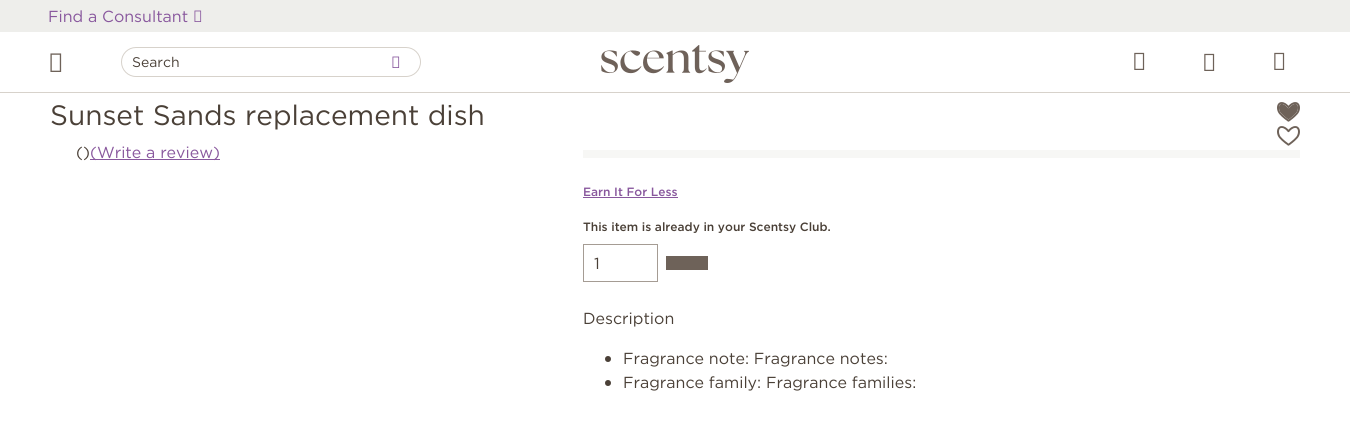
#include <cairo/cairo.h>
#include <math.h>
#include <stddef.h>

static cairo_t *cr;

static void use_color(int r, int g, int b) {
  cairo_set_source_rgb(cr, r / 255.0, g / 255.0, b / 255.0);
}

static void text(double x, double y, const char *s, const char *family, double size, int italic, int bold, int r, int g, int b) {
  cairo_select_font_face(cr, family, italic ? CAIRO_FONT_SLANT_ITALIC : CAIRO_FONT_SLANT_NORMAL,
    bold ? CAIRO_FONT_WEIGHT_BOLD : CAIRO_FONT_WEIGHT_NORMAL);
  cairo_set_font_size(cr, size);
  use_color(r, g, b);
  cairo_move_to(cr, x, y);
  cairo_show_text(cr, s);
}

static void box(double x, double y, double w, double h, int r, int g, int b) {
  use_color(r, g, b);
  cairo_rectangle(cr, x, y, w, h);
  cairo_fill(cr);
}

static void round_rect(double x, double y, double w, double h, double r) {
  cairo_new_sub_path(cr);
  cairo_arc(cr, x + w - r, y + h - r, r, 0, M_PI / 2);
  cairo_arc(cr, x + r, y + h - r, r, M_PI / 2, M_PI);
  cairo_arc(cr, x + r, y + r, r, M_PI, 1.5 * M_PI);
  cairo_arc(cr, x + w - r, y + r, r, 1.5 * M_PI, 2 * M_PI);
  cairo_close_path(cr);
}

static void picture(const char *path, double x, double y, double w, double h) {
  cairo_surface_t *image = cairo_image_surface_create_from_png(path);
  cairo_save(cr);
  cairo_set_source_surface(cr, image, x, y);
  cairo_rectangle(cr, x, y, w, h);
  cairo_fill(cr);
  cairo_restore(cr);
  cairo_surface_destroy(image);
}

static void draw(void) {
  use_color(255, 255, 255);
  cairo_paint(cr);
  box(0, 0, 1350, 32, 238, 238, 235);
  picture("img_01.png", 194, 10, 8, 12);
  box(0, 92, 1350, 1, 215, 210, 203);
  picture("img_02.png", 50, 53, 12, 19);
  round_rect(121.5, 47.5, 299, 29, 14.5);
  cairo_set_line_width(cr, 1);
  cairo_stroke(cr);
  picture("img_03.png", 392, 56, 8, 12);
  picture("img_04.png", 601, 45, 148, 38);
  picture("img_05.png", 1134, 52, 11, 18);
  picture("img_05.png", 1204, 53, 11, 18);
  picture("img_05.png", 1274, 52, 11, 18);
  box(90, 159, 130, 1, 136, 87, 157);
  picture("img_06.png", 1277, 102, 23, 20);
  picture("img_07.png", 1277, 126, 23, 20);
  box(583, 150, 717, 8, 247, 247, 245);
  box(583, 197, 95, 1, 136, 87, 157);
  cairo_rectangle(cr, 583.5, 244.5, 74, 37);
  use_color(165, 156, 148);
  cairo_stroke(cr);
  box(666, 256, 42, 14, 110, 98, 89);
  use_color(74, 64, 55);
  cairo_arc(cr, 608, 359, 3, 0, 2 * M_PI);
  cairo_fill(cr);
  cairo_arc(cr, 608, 383, 3, 0, 2 * M_PI);
  cairo_fill(cr);
  text(48, 22, "Find a Consultant", "Gotham", 16, 0, 0, 136, 87, 157);
  text(132, 67, "Search", "Gotham", 14, 0, 0, 74, 64, 55);
  text(50, 125, "Sunset Sands replacement dish", "Gotham", 28, 0, 0, 74, 64, 55);
  text(76, 158, "()", "Gotham", 16, 0, 0, 74, 64, 55);
  text(90, 158, "(Write a review)", "Gotham", 16, 0, 0, 136, 87, 157);
  text(583, 196, "Earn It For Less", "Gotham Medium", 12, 0, 0, 136, 87, 157);
  text(583, 231, "This item is already in your Scentsy Club.", "Gotham Medium", 12, 0, 0, 74, 64, 55);
  text(594, 269, "1", "Gotham", 16, 0, 0, 74, 64, 55);
  text(583, 324, "Description", "Gotham", 16, 0, 0, 74, 64, 55);
  text(623, 364, "Fragrance note: Fragrance notes:", "Gotham", 16, 0, 0, 74, 64, 55);
  text(623, 388, "Fragrance family: Fragrance families:", "Gotham", 16, 0, 0, 74, 64, 55);
}

int main(void) {
  cairo_surface_t *surface = cairo_image_surface_create(CAIRO_FORMAT_RGB24, 1350, 437);
  cr = cairo_create(surface);
  cairo_font_options_t *options = cairo_font_options_create();
  cairo_font_options_set_hint_metrics(options, CAIRO_HINT_METRICS_OFF);
  cairo_font_options_set_hint_style(options, CAIRO_HINT_STYLE_NONE);
  cairo_set_font_options(cr, options);
  cairo_set_miter_limit(cr, 4);
  draw();
  cairo_surface_write_to_png(surface, "out.png");
  cairo_font_options_destroy(options);
  cairo_destroy(cr);
  cairo_surface_destroy(surface);
  return 0;
}
